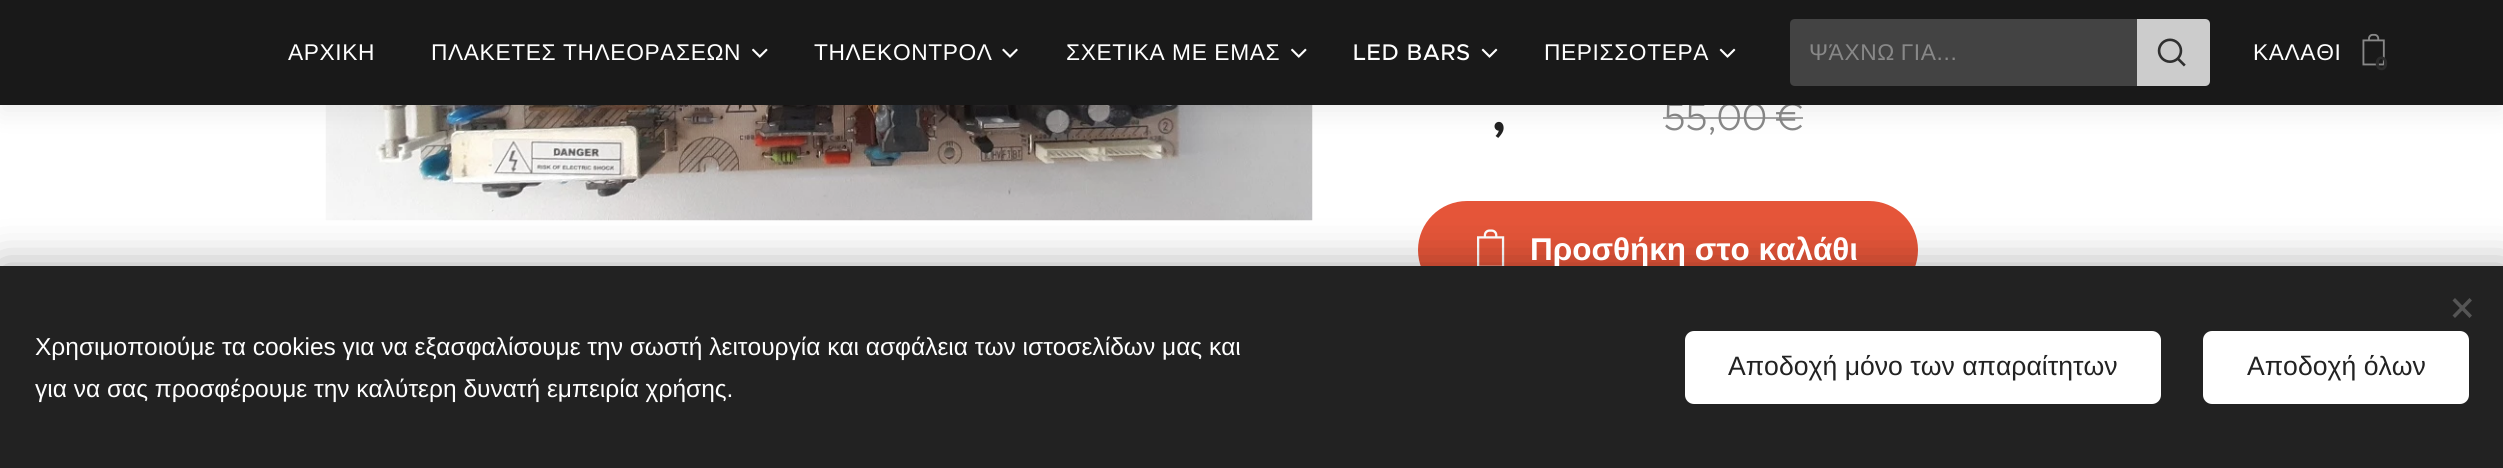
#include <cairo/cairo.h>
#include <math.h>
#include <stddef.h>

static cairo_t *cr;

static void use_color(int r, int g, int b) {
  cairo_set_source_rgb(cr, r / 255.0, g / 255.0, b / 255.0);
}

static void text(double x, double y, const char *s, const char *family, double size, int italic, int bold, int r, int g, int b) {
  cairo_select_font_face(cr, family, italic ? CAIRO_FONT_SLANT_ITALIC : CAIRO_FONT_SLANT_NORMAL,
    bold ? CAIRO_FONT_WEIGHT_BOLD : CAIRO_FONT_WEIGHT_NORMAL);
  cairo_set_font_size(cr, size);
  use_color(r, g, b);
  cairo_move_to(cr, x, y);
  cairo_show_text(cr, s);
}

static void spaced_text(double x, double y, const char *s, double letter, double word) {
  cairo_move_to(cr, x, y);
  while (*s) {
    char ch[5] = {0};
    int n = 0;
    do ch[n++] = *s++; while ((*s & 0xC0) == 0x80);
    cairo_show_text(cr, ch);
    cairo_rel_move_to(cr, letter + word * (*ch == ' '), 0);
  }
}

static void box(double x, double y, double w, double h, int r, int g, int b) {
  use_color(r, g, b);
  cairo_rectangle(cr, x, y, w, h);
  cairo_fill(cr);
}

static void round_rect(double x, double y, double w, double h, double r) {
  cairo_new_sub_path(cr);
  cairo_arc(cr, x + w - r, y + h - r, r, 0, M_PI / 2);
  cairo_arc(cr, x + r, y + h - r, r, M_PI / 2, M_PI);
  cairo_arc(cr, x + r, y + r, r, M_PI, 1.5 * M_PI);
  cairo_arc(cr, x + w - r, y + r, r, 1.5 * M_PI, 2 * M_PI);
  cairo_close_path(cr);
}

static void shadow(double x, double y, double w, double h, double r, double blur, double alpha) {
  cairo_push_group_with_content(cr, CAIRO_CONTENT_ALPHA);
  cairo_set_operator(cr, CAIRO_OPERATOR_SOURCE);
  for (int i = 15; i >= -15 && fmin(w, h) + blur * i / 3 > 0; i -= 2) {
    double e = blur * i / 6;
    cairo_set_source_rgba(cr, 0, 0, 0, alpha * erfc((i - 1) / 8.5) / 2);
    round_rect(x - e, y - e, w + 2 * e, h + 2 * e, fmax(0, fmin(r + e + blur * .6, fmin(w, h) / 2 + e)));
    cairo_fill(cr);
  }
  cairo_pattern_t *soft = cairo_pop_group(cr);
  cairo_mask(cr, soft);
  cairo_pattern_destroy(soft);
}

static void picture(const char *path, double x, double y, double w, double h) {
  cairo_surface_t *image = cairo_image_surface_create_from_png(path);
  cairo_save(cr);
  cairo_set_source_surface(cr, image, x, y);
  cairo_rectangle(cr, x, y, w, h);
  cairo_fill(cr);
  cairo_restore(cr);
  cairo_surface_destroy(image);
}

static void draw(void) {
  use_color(255, 255, 255);
  cairo_paint(cr);
  picture("img_06.png", 325, 105, 988, 116);
  use_color(229, 85, 57);
  round_rect(1420, 203, 496, 94, 47);
  cairo_fill_preserve(cr);
  cairo_set_line_width(cr, 4);
  cairo_stroke(cr);
  picture("img_07.png", 1477, 229, 28, 37);
  use_color(0, 0, 0);
  shadow(0, 266, 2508, 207, 0, 22, 0.33);
  cairo_select_font_face(cr, "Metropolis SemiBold", CAIRO_FONT_SLANT_NORMAL, CAIRO_FONT_WEIGHT_NORMAL);
  cairo_set_font_size(cr, 56);
  use_color(34, 34, 34);
  spaced_text(1491, 130, ",", -0.75, 0);
  cairo_select_font_face(cr, "Metropolis Light", CAIRO_FONT_SLANT_NORMAL, CAIRO_FONT_WEIGHT_NORMAL);
  cairo_set_font_size(cr, 38.5);
  use_color(136, 136, 136);
  spaced_text(1663, 130, "55,00 €", -0.75, 0);
  cairo_set_source_rgba(cr, 0.533, 0.533, 0.533, 0.75);
  cairo_rectangle(cr, 1663, 117, 140, 2);
  cairo_fill(cr);
  use_color(0, 0, 0);
  shadow(0, 9, 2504, 105, 0, 13, 0.07);
  box(0, 0, 2503, 105, 25, 25, 25);
  picture("img_05.png", 2362, 33, 23, 33);
  text(2375, 70, "0", "Montserrat", 19, 0, 1, 43, 43, 43);
  cairo_select_font_face(cr, "Liberation Sans", CAIRO_FONT_SLANT_NORMAL, CAIRO_FONT_WEIGHT_NORMAL);
  cairo_set_font_size(cr, 22.75);
  use_color(255, 255, 255);
  spaced_text(2253, 60, "ΚΑΛΑΘΙ", 0.6, 0);
  use_color(204, 204, 204);
  cairo_new_path(cr);
  cairo_move_to(cr, 2137, 19);
  cairo_line_to(cr, 2205, 19);
  cairo_curve_to(cr, 2208, 19, 2210, 21, 2210, 24);
  cairo_line_to(cr, 2210, 81);
  cairo_curve_to(cr, 2210, 84, 2208, 86, 2205, 86);
  cairo_line_to(cr, 2137, 86);
  cairo_close_path(cr);
  cairo_fill(cr);
  picture("img_04.png", 2157, 38, 29, 29);
  use_color(67, 67, 67);
  cairo_new_path(cr);
  cairo_move_to(cr, 1795, 19);
  cairo_line_to(cr, 2137, 19);
  cairo_line_to(cr, 2137, 86);
  cairo_line_to(cr, 1795, 86);
  cairo_curve_to(cr, 1792, 86, 1790, 84, 1790, 81);
  cairo_line_to(cr, 1790, 24);
  cairo_curve_to(cr, 1790, 21, 1792, 19, 1795, 19);
  cairo_close_path(cr);
  cairo_fill(cr);
  use_color(136, 136, 136);
  spaced_text(1809, 60, "ΨΆΧΝΩ ΓΙΑ...", 0.6, -1);
  picture("img_03.png", 1719, 48, 17, 10);
  use_color(255, 255, 255);
  spaced_text(1544, 60, "ΠΕΡΙΣΣΟΤΕΡΑ", 0.6, 0);
  picture("img_03.png", 1481, 48, 17, 10);
  cairo_select_font_face(cr, "Metropolis Medium", CAIRO_FONT_SLANT_NORMAL, CAIRO_FONT_WEIGHT_NORMAL);
  spaced_text(1353, 60, "LED BARS", 0.6, 0);
  picture("img_01.png", 1291, 48, 16, 10);
  cairo_select_font_face(cr, "Liberation Sans", CAIRO_FONT_SLANT_NORMAL, CAIRO_FONT_WEIGHT_NORMAL);
  spaced_text(1066, 60, "ΣΧΕΤΙΚΑ ΜΕ ΕΜΑΣ", 0.6, 0);
  picture("img_02.png", 1002, 48, 16, 10);
  spaced_text(814, 60, "ΤΗΛΕΚΟΝΤΡΟΛ", 0.6, 0);
  picture("img_01.png", 752, 48, 16, 10);
  spaced_text(431, 60, "ΠΛΑΚΕΤΕΣ ΤΗΛΕΟΡΑΣΕΩΝ", 0.6, 0);
  spaced_text(288, 60, "ΑΡΧΙΚΗ", 0.6, 0);
  text(1530, 260, "Προσθήκη στο καλάθι", "Liberation Sans", 31.5, 0, 1, 255, 255, 255);
  box(0, 266, 2503, 202, 34, 34, 34);
  use_color(85, 85, 85);
  cairo_new_path(cr);
  cairo_move_to(cr, 2452.5, 315.5);
  cairo_line_to(cr, 2469.5, 298);
  cairo_line_to(cr, 2472, 300.5);
  cairo_line_to(cr, 2455, 318);
  cairo_close_path(cr);
  cairo_fill(cr);
  cairo_new_path(cr);
  cairo_move_to(cr, 2455, 298);
  cairo_line_to(cr, 2472, 315.5);
  cairo_line_to(cr, 2469.5, 318);
  cairo_line_to(cr, 2452.5, 300.5);
  cairo_close_path(cr);
  cairo_fill(cr);
  text(35, 355, "Χρησιμοποιούμε τα cookies για να εξασφαλίσουμε την σωστή λειτουργία και ασφάλεια των ιστοσελίδων μας και", "Liberation Sans", 24.5, 0, 0, 255, 255, 255);
  text(35, 397, "για να σας προσφέρουμε την καλύτερη δυνατή εμπειρία χρήσης.", "Liberation Sans", 24.5, 0, 0, 255, 255, 255);
  round_rect(1685, 331, 476, 73, 9);
  cairo_fill(cr);
  text(1728, 375, "Αποδοχή μόνο των απαραίτητων", "Liberation Sans", 26.6, 0, 0, 34, 34, 34);
  use_color(255, 255, 255);
  round_rect(2203, 331, 266, 73, 9);
  cairo_fill(cr);
  text(2247, 375, "Αποδοχή όλων", "Liberation Sans", 26.6, 0, 0, 34, 34, 34);
}

int main(void) {
  cairo_surface_t *surface = cairo_image_surface_create(CAIRO_FORMAT_RGB24, 2503, 468);
  cr = cairo_create(surface);
  cairo_font_options_t *options = cairo_font_options_create();
  cairo_font_options_set_hint_metrics(options, CAIRO_HINT_METRICS_OFF);
  cairo_font_options_set_hint_style(options, CAIRO_HINT_STYLE_NONE);
  cairo_set_font_options(cr, options);
  cairo_set_miter_limit(cr, 4);
  draw();
  cairo_surface_write_to_png(surface, "out.png");
  cairo_font_options_destroy(options);
  cairo_destroy(cr);
  cairo_surface_destroy(surface);
  return 0;
}
